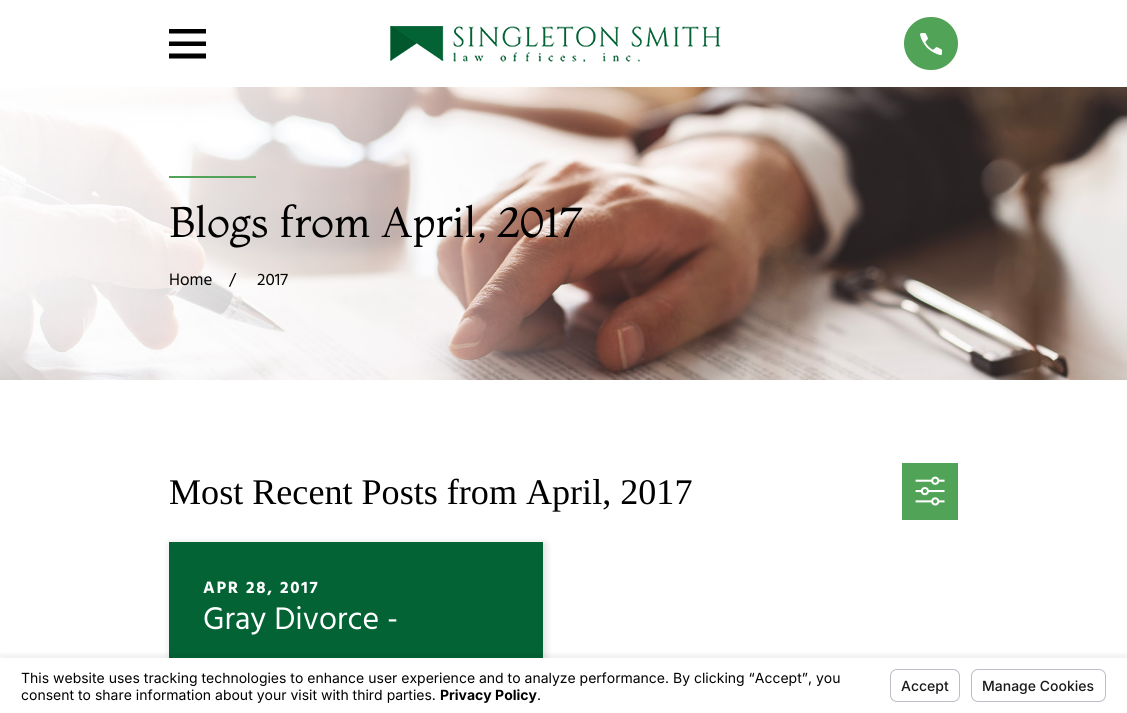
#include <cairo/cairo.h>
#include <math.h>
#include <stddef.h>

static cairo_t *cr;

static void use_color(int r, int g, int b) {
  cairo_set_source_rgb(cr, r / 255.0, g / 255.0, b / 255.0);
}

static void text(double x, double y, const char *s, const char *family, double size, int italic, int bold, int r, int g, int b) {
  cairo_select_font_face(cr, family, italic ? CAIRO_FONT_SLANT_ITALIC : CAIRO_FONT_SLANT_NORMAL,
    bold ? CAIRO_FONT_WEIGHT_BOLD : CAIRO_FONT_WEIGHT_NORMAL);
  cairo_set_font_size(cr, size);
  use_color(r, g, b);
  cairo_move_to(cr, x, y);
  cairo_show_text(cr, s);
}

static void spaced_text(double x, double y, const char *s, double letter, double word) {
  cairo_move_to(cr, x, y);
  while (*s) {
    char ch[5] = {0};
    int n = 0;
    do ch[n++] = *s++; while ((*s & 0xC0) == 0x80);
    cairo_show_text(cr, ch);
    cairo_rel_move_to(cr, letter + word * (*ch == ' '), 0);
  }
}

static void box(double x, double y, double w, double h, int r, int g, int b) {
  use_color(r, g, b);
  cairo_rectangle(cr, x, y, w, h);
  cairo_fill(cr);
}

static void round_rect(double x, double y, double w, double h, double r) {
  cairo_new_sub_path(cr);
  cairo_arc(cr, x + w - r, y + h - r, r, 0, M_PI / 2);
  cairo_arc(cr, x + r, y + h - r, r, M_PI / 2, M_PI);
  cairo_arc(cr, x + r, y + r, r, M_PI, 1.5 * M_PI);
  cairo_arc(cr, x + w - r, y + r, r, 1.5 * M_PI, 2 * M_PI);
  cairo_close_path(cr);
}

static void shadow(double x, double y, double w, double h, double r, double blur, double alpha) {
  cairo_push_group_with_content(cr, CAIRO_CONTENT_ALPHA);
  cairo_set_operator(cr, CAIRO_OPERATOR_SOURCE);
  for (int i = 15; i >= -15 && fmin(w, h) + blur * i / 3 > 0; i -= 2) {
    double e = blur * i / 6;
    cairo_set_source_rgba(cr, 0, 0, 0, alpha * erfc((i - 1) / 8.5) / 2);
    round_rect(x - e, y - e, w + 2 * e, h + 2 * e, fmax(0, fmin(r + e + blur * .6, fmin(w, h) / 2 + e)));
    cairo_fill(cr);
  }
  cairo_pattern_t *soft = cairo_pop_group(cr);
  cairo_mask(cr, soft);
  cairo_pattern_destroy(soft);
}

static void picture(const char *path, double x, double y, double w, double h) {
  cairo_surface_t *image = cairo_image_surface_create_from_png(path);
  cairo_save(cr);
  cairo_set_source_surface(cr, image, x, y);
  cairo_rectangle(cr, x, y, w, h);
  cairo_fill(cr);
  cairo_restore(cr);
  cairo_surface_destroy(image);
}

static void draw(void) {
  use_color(255, 255, 255);
  cairo_paint(cr);
  cairo_save(cr);
  cairo_rectangle(cr, 169, 25, 37, 37);
  cairo_clip(cr);
  use_color(0, 0, 0);
  cairo_new_path(cr);
  cairo_move_to(cr, 169, 29);
  cairo_line_to(cr, 169, 33.5);
  cairo_line_to(cr, 206.5, 33.5);
  cairo_line_to(cr, 206.5, 29);
  cairo_close_path(cr);
  cairo_move_to(cr, 169, 41.5);
  cairo_line_to(cr, 169, 46);
  cairo_line_to(cr, 206.5, 46);
  cairo_line_to(cr, 206.5, 41.5);
  cairo_close_path(cr);
  cairo_move_to(cr, 169, 53.5);
  cairo_line_to(cr, 169, 58.5);
  cairo_line_to(cr, 206.5, 58.5);
  cairo_line_to(cr, 206.5, 53.5);
  cairo_close_path(cr);
  cairo_fill(cr);
  cairo_restore(cr);
  picture("img_01.png", 390, 26, 331, 36);
  use_color(80, 163, 87);
  round_rect(904, 17, 54, 53, 26.5);
  cairo_fill(cr);
  picture("img_02.png", 920, 33, 22, 22);
  picture("img_03.png", 0, 87, 1127, 293);
  box(169, 176, 87, 2, 80, 163, 87);
  box(902, 463, 56, 57, 80, 163, 87);
  picture("img_04.png", 915, 476, 30, 30);
  use_color(0, 0, 0);
  shadow(171, 544, 374, 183, 0, 4.5, 0.16);
  box(169, 542, 374, 116, 3, 99, 52);
  use_color(0, 0, 0);
  shadow(0, 654, 1127, 55, 0, 1.5, 0.05);
  box(0, 658, 1127, 55, 255, 255, 255);
  round_rect(890.5, 669.5, 69, 32, 6.5);
  use_color(188, 190, 199);
  cairo_set_line_width(cr, 1);
  cairo_stroke(cr);
  round_rect(971.5, 669.5, 134, 32, 6.5);
  cairo_stroke(cr);
  text(169, 237, "Blogs from April, 2017", "Montaga", 42.5, 0, 0, 0, 0, 0);
  text(169, 285, "Home", "Hind", 17, 0, 0, 0, 0, 0);
  text(229, 285, "/", "Hind", 17, 0, 0, 0, 0, 0);
  text(257, 285, "2017", "Hind", 17, 0, 0, 0, 0, 0);
  text(169, 504, "Most Recent Posts from April, 2017", "Liberation Serif", 36.1, 0, 0, 0, 0, 0);
  cairo_select_font_face(cr, "Hind", CAIRO_FONT_SLANT_NORMAL, CAIRO_FONT_WEIGHT_BOLD);
  cairo_set_font_size(cr, 17);
  use_color(255, 255, 255);
  spaced_text(203, 593, "APR 28, 2017", 1.75, 0);
  text(203, 629, "Gray Divorce -", "Hind", 32, 0, 0, 255, 255, 255);
  text(21, 683, "This website uses tracking technologies to enhance user experience and to analyze performance. By clicking “Accept”, you", "Inter", 14, 0, 0, 0, 0, 0);
  text(21, 700, "consent to share information about your visit with third parties.", "Inter", 14, 0, 0, 0, 0, 0);
  text(440, 700, "Privacy Policy", "Inter", 14, 0, 1, 0, 0, 0);
  text(537, 700, ".", "Inter", 14, 0, 0, 0, 0, 0);
  text(901, 691, "Accept", "Inter Medium", 14, 0, 0, 25, 25, 25);
  text(982, 691, "Manage Cookies", "Inter Medium", 14, 0, 0, 25, 25, 25);
}

int main(void) {
  cairo_surface_t *surface = cairo_image_surface_create(CAIRO_FORMAT_RGB24, 1127, 713);
  cr = cairo_create(surface);
  cairo_font_options_t *options = cairo_font_options_create();
  cairo_font_options_set_hint_metrics(options, CAIRO_HINT_METRICS_OFF);
  cairo_font_options_set_hint_style(options, CAIRO_HINT_STYLE_NONE);
  cairo_set_font_options(cr, options);
  cairo_set_miter_limit(cr, 4);
  draw();
  cairo_surface_write_to_png(surface, "out.png");
  cairo_font_options_destroy(options);
  cairo_destroy(cr);
  cairo_surface_destroy(surface);
  return 0;
}
